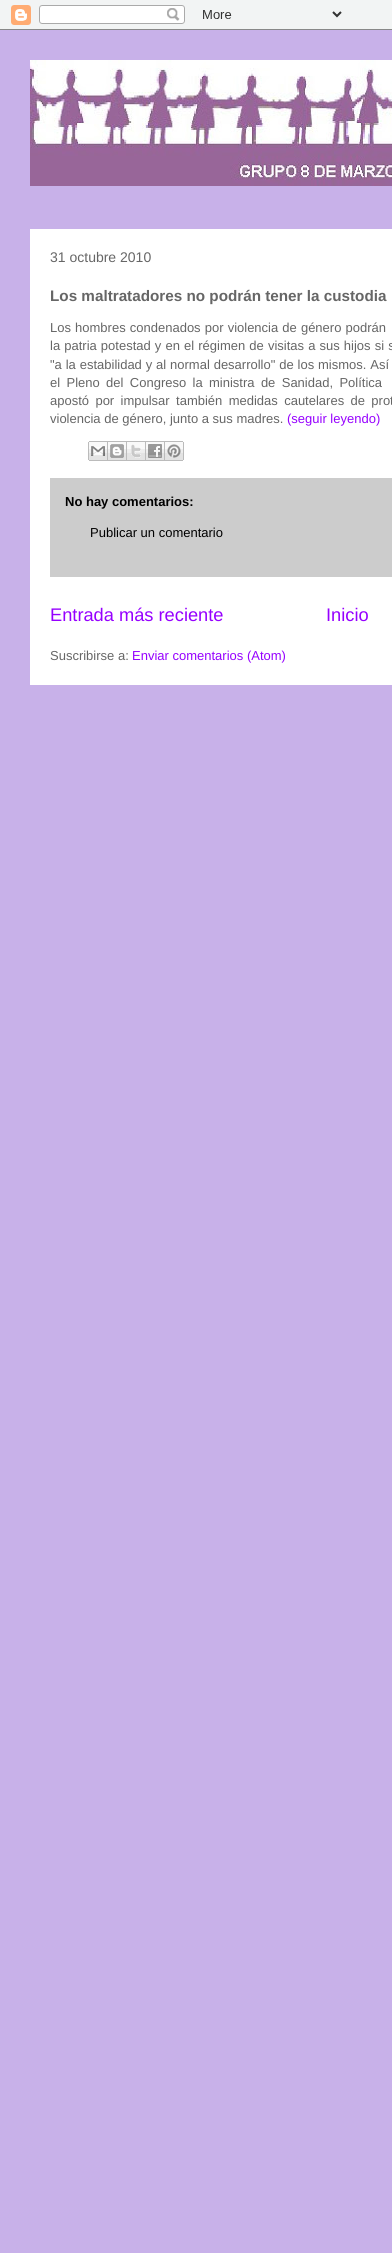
#include <cairo/cairo.h>
#include <math.h>
#include <stddef.h>

static cairo_t *cr;

static void use_color(int r, int g, int b) {
  cairo_set_source_rgb(cr, r / 255.0, g / 255.0, b / 255.0);
}

static void text(double x, double y, const char *s, const char *family, double size, int italic, int bold, int r, int g, int b) {
  cairo_select_font_face(cr, family, italic ? CAIRO_FONT_SLANT_ITALIC : CAIRO_FONT_SLANT_NORMAL,
    bold ? CAIRO_FONT_WEIGHT_BOLD : CAIRO_FONT_WEIGHT_NORMAL);
  cairo_set_font_size(cr, size);
  use_color(r, g, b);
  cairo_move_to(cr, x, y);
  cairo_show_text(cr, s);
}

static void spaced_text(double x, double y, const char *s, double letter, double word) {
  cairo_move_to(cr, x, y);
  while (*s) {
    char ch[5] = {0};
    int n = 0;
    do ch[n++] = *s++; while ((*s & 0xC0) == 0x80);
    cairo_show_text(cr, ch);
    cairo_rel_move_to(cr, letter + word * (*ch == ' '), 0);
  }
}

static void box(double x, double y, double w, double h, int r, int g, int b) {
  use_color(r, g, b);
  cairo_rectangle(cr, x, y, w, h);
  cairo_fill(cr);
}

static void picture(const char *path, double x, double y, double w, double h) {
  cairo_surface_t *image = cairo_image_surface_create_from_png(path);
  cairo_save(cr);
  cairo_set_source_surface(cr, image, x, y);
  cairo_rectangle(cr, x, y, w, h);
  cairo_fill(cr);
  cairo_restore(cr);
  cairo_surface_destroy(image);
}

static void draw(void) {
  use_color(233, 237, 236);
  cairo_paint(cr);
  picture("img_01.png", 0, 0, 392, 30);
  box(0, 30, 392, 2223, 200, 177, 233);
  picture("img_02.png", 30, 60, 362, 126);
  box(30, 229, 362, 456, 255, 255, 255);
  picture("img_03.png", 88, 441, 20, 20);
  picture("img_04.png", 108, 441, 19, 20);
  picture("img_05.png", 127, 441, 19, 20);
  picture("img_06.png", 146, 441, 19, 20);
  picture("img_07.png", 165, 441, 19, 20);
  box(50, 478, 342, 99, 204, 204, 204);
  text(50, 262, "31 octubre 2010", "Liberation Sans", 14, 0, 0, 102, 102, 102);
  text(50, 301, "Los maltratadores no podrán tener la custodia", "Liberation Sans", 15.25, 0, 1, 102, 102, 102);
  cairo_select_font_face(cr, "Liberation Sans", CAIRO_FONT_SLANT_NORMAL, CAIRO_FONT_WEIGHT_NORMAL);
  cairo_set_font_size(cr, 13);
  spaced_text(50, 332, "Los hombres condenados por violencia de género podrán", 0, 0.5);
  spaced_text(50, 350, "la patria potestad y en el régimen de visitas a sus hijos si s", 0, 0.5);
  spaced_text(50, 369, "\"a la estabilidad y al normal desarrollo\" de los mismos. Así", 0, 0.25);
  spaced_text(50, 387, "el Pleno del Congreso la ministra de Sanidad, Política", 0, 2.75);
  spaced_text(50, 405, "apostó por impulsar también medidas cautelares de prot", 0, 2.75);
  text(50, 423, "violencia de género, junto a sus madres.", "Liberation Sans", 13, 0, 0, 102, 102, 102);
  text(287, 423, "(seguir leyendo)", "Liberation Sans", 13, 0, 0, 150, 0, 255);
  text(65, 506, "No hay comentarios:", "Liberation Sans", 13, 0, 1, 0, 0, 0);
  text(90, 537, "Publicar un comentario", "Liberation Sans", 13, 0, 0, 0, 0, 0);
  text(50, 621, "Entrada más reciente", "Liberation Sans", 18.25, 0, 0, 150, 0, 255);
  text(326, 621, "Inicio", "Liberation Sans", 18.25, 0, 0, 150, 0, 255);
  text(50, 660, "Suscribirse a:", "Liberation Sans", 13, 0, 0, 102, 102, 102);
  text(132, 660, "Enviar comentarios (Atom)", "Liberation Sans", 13, 0, 0, 150, 0, 255);
}

int main(void) {
  cairo_surface_t *surface = cairo_image_surface_create(CAIRO_FORMAT_RGB24, 392, 2253);
  cr = cairo_create(surface);
  cairo_font_options_t *options = cairo_font_options_create();
  cairo_font_options_set_hint_metrics(options, CAIRO_HINT_METRICS_OFF);
  cairo_font_options_set_hint_style(options, CAIRO_HINT_STYLE_NONE);
  cairo_set_font_options(cr, options);
  cairo_set_miter_limit(cr, 4);
  draw();
  cairo_surface_write_to_png(surface, "out.png");
  cairo_font_options_destroy(options);
  cairo_destroy(cr);
  cairo_surface_destroy(surface);
  return 0;
}
